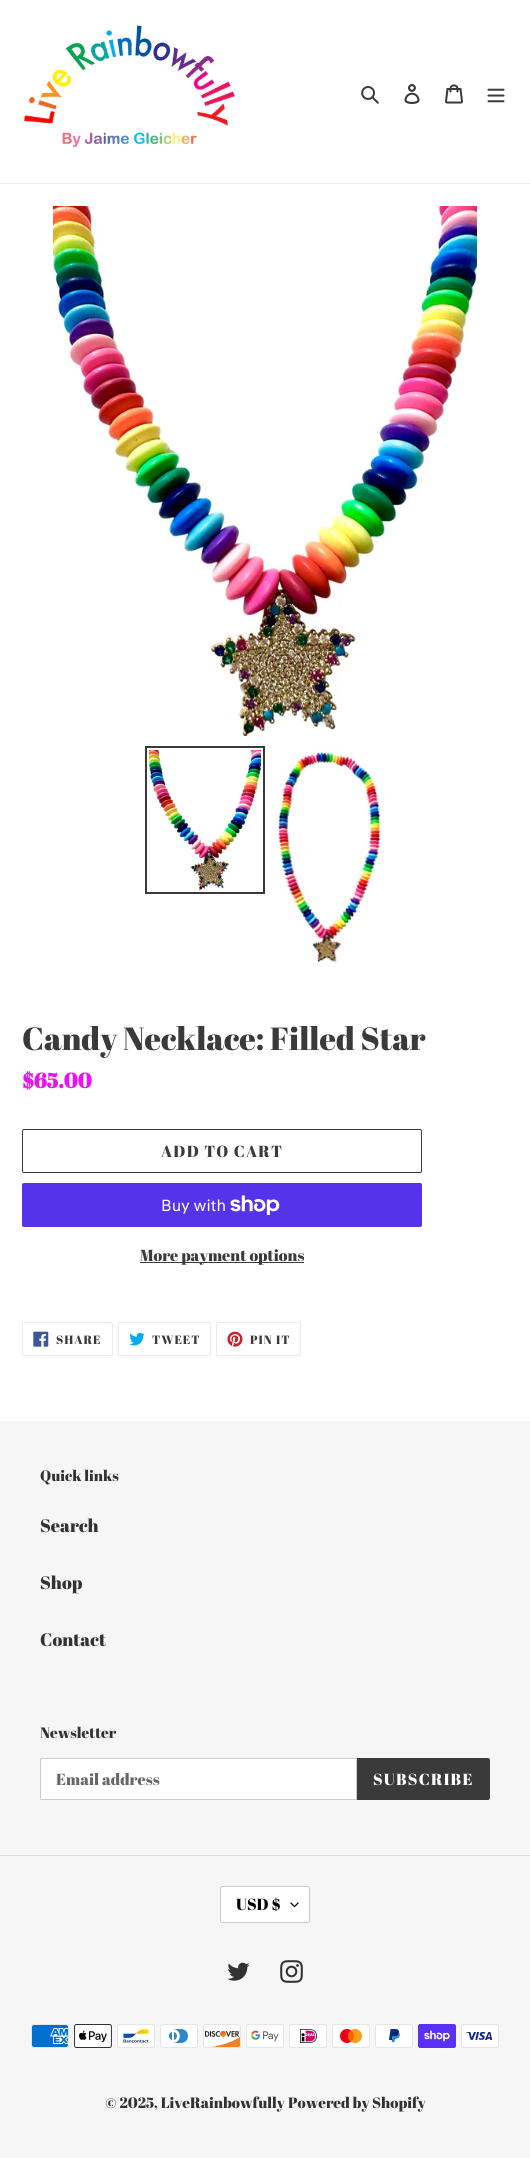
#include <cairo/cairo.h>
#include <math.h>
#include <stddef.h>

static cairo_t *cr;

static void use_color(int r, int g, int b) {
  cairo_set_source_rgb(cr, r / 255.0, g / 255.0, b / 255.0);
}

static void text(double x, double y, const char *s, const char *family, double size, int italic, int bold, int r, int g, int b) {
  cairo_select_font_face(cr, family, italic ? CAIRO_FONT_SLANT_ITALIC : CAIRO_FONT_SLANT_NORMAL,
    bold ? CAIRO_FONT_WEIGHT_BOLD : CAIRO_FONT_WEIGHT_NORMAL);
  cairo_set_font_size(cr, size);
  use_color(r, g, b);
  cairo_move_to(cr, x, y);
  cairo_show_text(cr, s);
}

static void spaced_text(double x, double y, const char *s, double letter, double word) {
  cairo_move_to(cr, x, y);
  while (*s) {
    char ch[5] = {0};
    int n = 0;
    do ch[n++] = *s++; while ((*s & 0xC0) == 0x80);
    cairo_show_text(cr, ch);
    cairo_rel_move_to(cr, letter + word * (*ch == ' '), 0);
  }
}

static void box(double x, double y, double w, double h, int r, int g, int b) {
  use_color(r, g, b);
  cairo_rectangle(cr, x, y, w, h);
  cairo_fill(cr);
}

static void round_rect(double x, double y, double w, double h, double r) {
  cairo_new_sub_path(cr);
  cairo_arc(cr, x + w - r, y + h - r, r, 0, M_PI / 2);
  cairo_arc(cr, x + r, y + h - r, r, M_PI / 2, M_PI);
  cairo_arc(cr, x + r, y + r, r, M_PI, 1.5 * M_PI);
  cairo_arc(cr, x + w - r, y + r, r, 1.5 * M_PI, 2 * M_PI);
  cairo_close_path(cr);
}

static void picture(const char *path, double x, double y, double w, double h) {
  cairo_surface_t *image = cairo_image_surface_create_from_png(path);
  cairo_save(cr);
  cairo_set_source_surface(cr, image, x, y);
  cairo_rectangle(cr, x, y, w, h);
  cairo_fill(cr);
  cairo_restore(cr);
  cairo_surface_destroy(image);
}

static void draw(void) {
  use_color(255, 255, 255);
  cairo_paint(cr);
  box(0, 183, 530, 1, 235, 235, 235);
  picture("img_01.png", 22, 24, 215, 124);
  picture("img_02.png", 361, 86, 18, 18);
  picture("img_03.png", 404, 84, 16, 20);
  picture("img_04.png", 445, 84, 18, 20);
  picture("img_05.png", 487, 88, 18, 15);
  picture("img_06.png", 53, 206, 424, 530);
  cairo_rectangle(cr, 146, 747, 118, 146);
  use_color(58, 58, 58);
  cairo_stroke(cr);
  picture("img_07.png", 149, 750, 112, 140);
  picture("img_08.png", 274, 750, 110, 213);
  round_rect(22.5, 1129.5, 399, 43, 1.5);
  cairo_set_line_width(cr, 1);
  cairo_stroke(cr);
  use_color(84, 51, 235);
  round_rect(22, 1183, 400, 44, 2);
  cairo_fill(cr);
  picture("img_09.png", 230, 1195, 50, 20);
  box(140, 1262, 164, 1, 58, 58, 58);
  round_rect(22.5, 1322.5, 90, 33, 1.5);
  use_color(235, 235, 235);
  cairo_stroke(cr);
  picture("img_10.png", 33, 1331, 16, 16);
  round_rect(118.5, 1322.5, 92, 33, 1.5);
  cairo_stroke(cr);
  picture("img_11.png", 129, 1332, 16, 14);
  round_rect(216.5, 1322.5, 84, 33, 1.5);
  cairo_stroke(cr);
  picture("img_12.png", 227, 1331, 16, 16);
  box(0, 1421, 530, 737, 246, 246, 246);
  use_color(255, 255, 255);
  cairo_new_path(cr);
  cairo_move_to(cr, 42, 1758.5);
  cairo_line_to(cr, 356.5, 1758.5);
  cairo_line_to(cr, 356.5, 1799.5);
  cairo_line_to(cr, 42, 1799.5);
  cairo_curve_to(cr, 41, 1799.5, 40.5, 1799, 40.5, 1798);
  cairo_line_to(cr, 40.5, 1760);
  cairo_curve_to(cr, 40.5, 1759, 41, 1758.5, 42, 1758.5);
  cairo_close_path(cr);
  cairo_fill_preserve(cr);
  use_color(204, 204, 204);
  cairo_stroke(cr);
  use_color(58, 58, 58);
  cairo_new_path(cr);
  cairo_move_to(cr, 357, 1758);
  cairo_line_to(cr, 488, 1758);
  cairo_curve_to(cr, 489, 1758, 490, 1759, 490, 1760);
  cairo_line_to(cr, 490, 1798);
  cairo_curve_to(cr, 490, 1799, 489, 1800, 488, 1800);
  cairo_line_to(cr, 357, 1800);
  cairo_close_path(cr);
  cairo_fill(cr);
  box(0, 1855, 530, 1, 221, 221, 221);
  use_color(255, 255, 255);
  round_rect(220, 1886, 90, 37, 2);
  cairo_fill(cr);
  picture("img_13.png", 290, 1902, 9, 6);
  round_rect(220.5, 1886.5, 89, 36, 1.5);
  use_color(204, 204, 204);
  cairo_stroke(cr);
  picture("img_14.png", 227, 1962, 23, 19);
  picture("img_15.png", 280, 1960, 23, 23);
  picture("img_16.png", 31, 2024, 38, 24);
  picture("img_17.png", 74, 2024, 38, 24);
  picture("img_18.png", 117, 2024, 38, 24);
  picture("img_19.png", 160, 2024, 38, 24);
  picture("img_20.png", 203, 2024, 38, 24);
  picture("img_21.png", 246, 2024, 38, 24);
  picture("img_22.png", 289, 2024, 38, 24);
  picture("img_23.png", 332, 2024, 38, 24);
  picture("img_24.png", 375, 2024, 38, 24);
  picture("img_25.png", 418, 2024, 38, 24);
  picture("img_26.png", 461, 2024, 38, 24);
  text(22, 1050, "Candy Necklace: Filled Star", "Abril Fatface", 32, 0, 0, 58, 58, 58);
  text(22, 1088, "$65.00", "Abril Fatface", 21, 0, 1, 238, 14, 238);
  cairo_select_font_face(cr, "Abril Fatface", CAIRO_FONT_SLANT_NORMAL, CAIRO_FONT_WEIGHT_NORMAL);
  cairo_set_font_size(cr, 16);
  use_color(58, 58, 58);
  spaced_text(161, 1157, "ADD TO CART", 1.25, 0);
  text(161, 1211, "Buy with", "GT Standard", 16, 0, 0, 255, 255, 255);
  text(140, 1261, "More payment options", "Abril Fatface", 16, 0, 0, 58, 58, 58);
  cairo_set_font_size(cr, 12);
  spaced_text(56, 1344, "SHARE", 1, 0);
  spaced_text(152, 1344, "TWEET", 1, 0);
  spaced_text(250, 1344, "PIN IT", 1, 0);
  text(40, 1481, "Quick links", "Abril Fatface", 15, 0, 0, 51, 50, 50);
  text(40, 1532, "Search", "Abril Fatface", 18, 0, 0, 51, 50, 50);
  text(40, 1589, "Shop", "Abril Fatface", 18, 0, 0, 51, 50, 50);
  text(40, 1646, "Contact", "Abril Fatface", 18, 0, 0, 51, 50, 50);
  text(40, 1738, "Newsletter", "Abril Fatface", 15, 0, 0, 51, 50, 50);
  text(56, 1785, "Email address", "Abril Fatface", 16, 0, 0, 102, 102, 102);
  use_color(255, 255, 255);
  spaced_text(373, 1785, "SUBSCRIBE", 1.25, 0);
  text(236, 1910, "USD $", "Abril Fatface", 16, 0, 0, 0, 0, 0);
  text(105, 2108, "© 2025, LiveRainbowfully", "Abril Fatface", 15, 0, 0, 51, 50, 50);
  text(288, 2108, "Powered by Shopify", "Abril Fatface", 15, 0, 0, 51, 50, 50);
}

int main(void) {
  cairo_surface_t *surface = cairo_image_surface_create(CAIRO_FORMAT_RGB24, 530, 2158);
  cr = cairo_create(surface);
  cairo_font_options_t *options = cairo_font_options_create();
  cairo_font_options_set_hint_metrics(options, CAIRO_HINT_METRICS_OFF);
  cairo_font_options_set_hint_style(options, CAIRO_HINT_STYLE_NONE);
  cairo_set_font_options(cr, options);
  cairo_set_miter_limit(cr, 4);
  draw();
  cairo_surface_write_to_png(surface, "out.png");
  cairo_font_options_destroy(options);
  cairo_destroy(cr);
  cairo_surface_destroy(surface);
  return 0;
}
